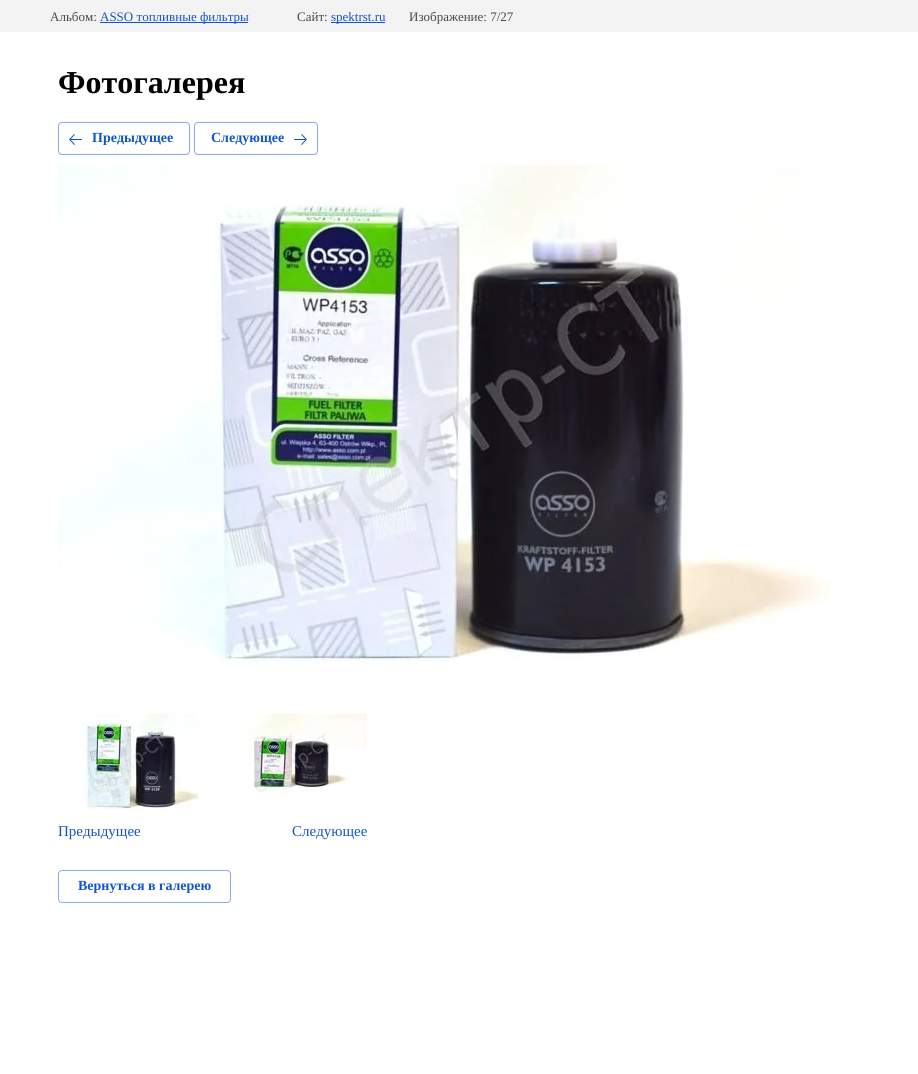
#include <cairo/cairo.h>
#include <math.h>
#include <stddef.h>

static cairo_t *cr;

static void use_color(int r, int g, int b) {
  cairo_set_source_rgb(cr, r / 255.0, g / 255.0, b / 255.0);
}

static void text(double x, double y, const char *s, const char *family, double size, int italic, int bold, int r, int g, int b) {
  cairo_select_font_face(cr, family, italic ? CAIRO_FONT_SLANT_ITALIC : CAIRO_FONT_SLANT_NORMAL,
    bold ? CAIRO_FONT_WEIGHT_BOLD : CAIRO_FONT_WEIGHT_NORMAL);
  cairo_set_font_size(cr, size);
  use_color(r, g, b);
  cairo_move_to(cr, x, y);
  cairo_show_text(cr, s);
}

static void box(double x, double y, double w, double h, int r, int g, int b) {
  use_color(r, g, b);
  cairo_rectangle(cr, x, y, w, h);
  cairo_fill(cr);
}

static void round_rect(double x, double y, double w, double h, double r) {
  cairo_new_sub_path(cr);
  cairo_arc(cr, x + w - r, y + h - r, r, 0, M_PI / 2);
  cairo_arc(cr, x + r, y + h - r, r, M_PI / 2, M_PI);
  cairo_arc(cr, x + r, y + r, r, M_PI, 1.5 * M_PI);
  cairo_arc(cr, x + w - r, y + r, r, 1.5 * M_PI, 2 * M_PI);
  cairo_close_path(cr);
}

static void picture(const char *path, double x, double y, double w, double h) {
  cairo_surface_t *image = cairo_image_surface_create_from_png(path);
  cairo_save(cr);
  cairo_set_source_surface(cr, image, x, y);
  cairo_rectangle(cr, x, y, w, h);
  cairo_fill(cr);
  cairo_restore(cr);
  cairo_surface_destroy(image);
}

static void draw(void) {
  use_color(255, 255, 255);
  cairo_paint(cr);
  box(0, 0, 918, 32, 243, 243, 243);
  box(100, 22, 148, 1, 17, 85, 204);
  box(331, 22, 54, 1, 17, 85, 204);
  round_rect(58.5, 122.5, 131, 32, 3.5);
  use_color(136, 170, 230);
  cairo_set_line_width(cr, 1);
  cairo_stroke(cr);
  picture("img_01.png", 69, 134, 13, 11);
  round_rect(194.5, 122.5, 123, 32, 3.5);
  cairo_stroke(cr);
  picture("img_02.png", 294, 134, 13, 11);
  picture("img_03.png", 58, 165, 772, 497);
  picture("img_04.png", 81, 714, 117, 96);
  picture("img_05.png", 244, 714, 123, 79);
  round_rect(58.5, 870.5, 172, 32, 3.5);
  cairo_stroke(cr);
  text(50, 21, "Альбом:", "Liberation Serif", 13, 0, 0, 72, 72, 72);
  text(100, 21, "ASSO топливные фильтры", "Liberation Serif", 13, 0, 0, 17, 85, 204);
  text(297, 21, "Сайт:", "Liberation Serif", 13, 0, 0, 72, 72, 72);
  text(331, 21, "spektrst.ru", "Liberation Serif", 13, 0, 0, 17, 85, 204);
  text(409, 21, "Изображение: 7/27", "Liberation Serif", 13, 0, 0, 72, 72, 72);
  text(58, 93, "Фотогалерея", "Liberation Serif", 32, 0, 1, 0, 0, 0);
  text(92, 142, "Предыдущее", "Liberation Serif", 14, 0, 1, 17, 85, 204);
  text(211, 142, "Следующее", "Liberation Serif", 14, 0, 1, 17, 85, 204);
  text(58, 836, "Предыдущее", "Liberation Serif", 15, 0, 0, 17, 85, 204);
  text(292, 836, "Следующее", "Liberation Serif", 15, 0, 0, 17, 85, 204);
  text(78, 890, "Вернуться в галерею", "Liberation Serif", 14, 0, 1, 17, 85, 204);
}

int main(void) {
  cairo_surface_t *surface = cairo_image_surface_create(CAIRO_FORMAT_RGB24, 918, 1074);
  cr = cairo_create(surface);
  cairo_font_options_t *options = cairo_font_options_create();
  cairo_font_options_set_hint_metrics(options, CAIRO_HINT_METRICS_OFF);
  cairo_font_options_set_hint_style(options, CAIRO_HINT_STYLE_NONE);
  cairo_set_font_options(cr, options);
  cairo_set_miter_limit(cr, 4);
  draw();
  cairo_surface_write_to_png(surface, "out.png");
  cairo_font_options_destroy(options);
  cairo_destroy(cr);
  cairo_surface_destroy(surface);
  return 0;
}
